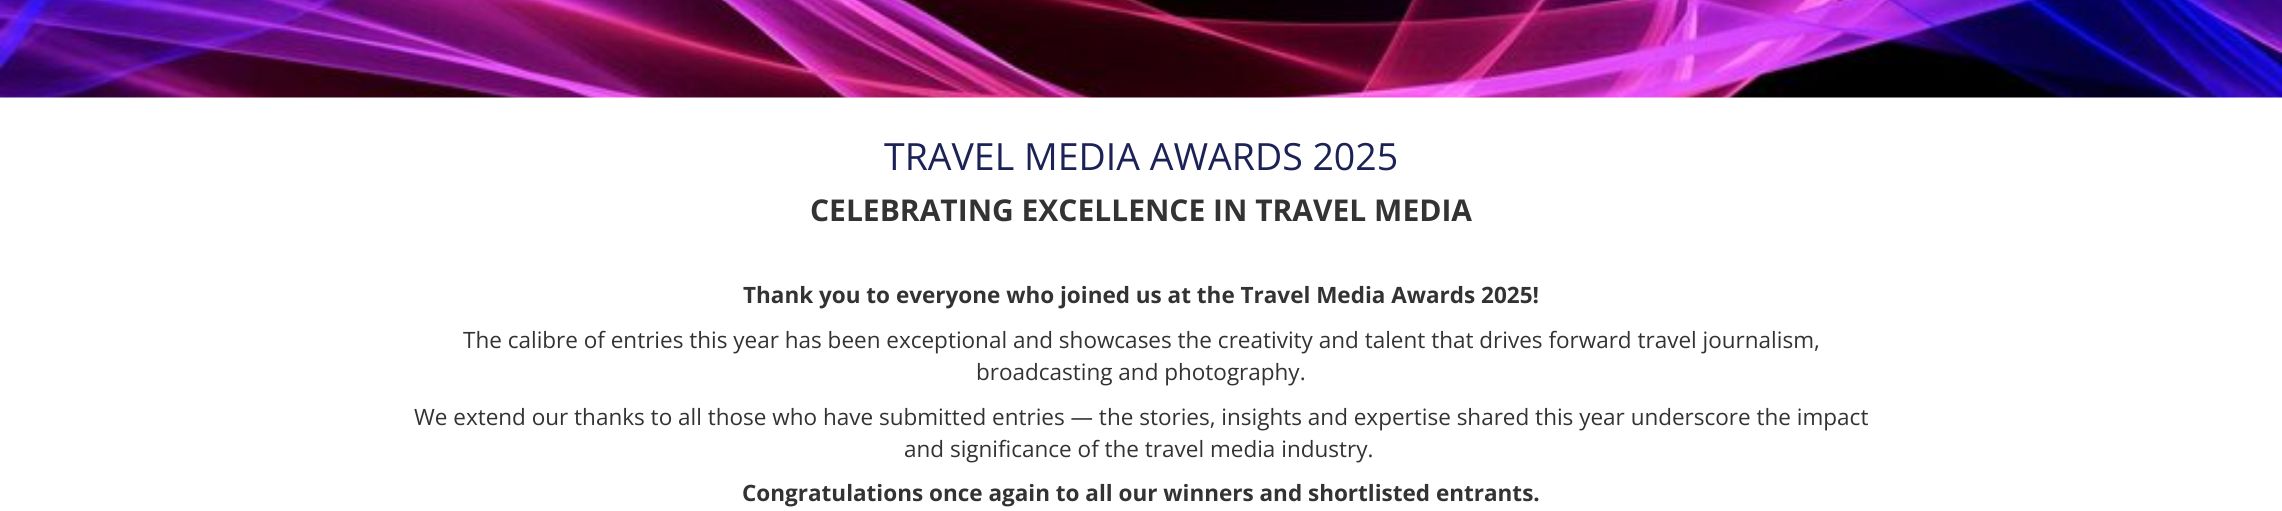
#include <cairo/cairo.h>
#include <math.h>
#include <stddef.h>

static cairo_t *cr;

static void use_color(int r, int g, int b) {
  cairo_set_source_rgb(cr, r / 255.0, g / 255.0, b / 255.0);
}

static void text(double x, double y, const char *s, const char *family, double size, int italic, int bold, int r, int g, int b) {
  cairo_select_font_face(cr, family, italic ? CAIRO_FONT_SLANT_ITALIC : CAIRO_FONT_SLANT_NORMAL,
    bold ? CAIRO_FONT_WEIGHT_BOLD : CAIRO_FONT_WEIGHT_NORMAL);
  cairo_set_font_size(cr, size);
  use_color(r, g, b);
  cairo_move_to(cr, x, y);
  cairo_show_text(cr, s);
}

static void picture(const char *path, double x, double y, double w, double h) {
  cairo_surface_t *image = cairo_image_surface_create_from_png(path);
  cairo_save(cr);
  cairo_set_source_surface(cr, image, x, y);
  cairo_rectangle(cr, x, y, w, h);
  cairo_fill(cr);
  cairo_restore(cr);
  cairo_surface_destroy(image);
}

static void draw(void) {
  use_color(255, 255, 255);
  cairo_paint(cr);
  picture("img_01.png", 0, 0, 2282, 98);
  text(884, 170, "TRAVEL MEDIA AWARDS 2025", "Open Sans", 37.5, 0, 0, 28, 34, 86);
  text(810, 221, "CELEBRATING EXCELLENCE IN TRAVEL MEDIA", "Open Sans", 30, 0, 1, 51, 51, 51);
  text(743, 303, "Thank you to everyone who joined us at the Travel Media Awards 2025!", "Open Sans", 22.5, 0, 1, 51, 51, 51);
  text(463, 348, "The calibre of entries this year has been exceptional and showcases the creativity and talent that drives forward travel journalism,", "Open Sans", 22.5, 0, 0, 51, 51, 51);
  text(976, 380, "broadcasting and photography.", "Open Sans", 22.5, 0, 0, 51, 51, 51);
  text(414, 425, "We extend our thanks to all those who have submitted entries — the stories, insights and expertise shared this year underscore the impact", "Open Sans", 22.5, 0, 0, 51, 51, 51);
  text(904, 457, "and significance of the travel media industry.", "Open Sans", 22.5, 0, 0, 51, 51, 51);
  text(742, 501, "Congratulations once again to all our winners and shortlisted entrants.", "Open Sans", 22.5, 0, 1, 51, 51, 51);
}

int main(void) {
  cairo_surface_t *surface = cairo_image_surface_create(CAIRO_FORMAT_RGB24, 2282, 511);
  cr = cairo_create(surface);
  cairo_font_options_t *options = cairo_font_options_create();
  cairo_font_options_set_hint_metrics(options, CAIRO_HINT_METRICS_OFF);
  cairo_font_options_set_hint_style(options, CAIRO_HINT_STYLE_NONE);
  cairo_set_font_options(cr, options);
  cairo_set_miter_limit(cr, 4);
  draw();
  cairo_surface_write_to_png(surface, "out.png");
  cairo_font_options_destroy(options);
  cairo_destroy(cr);
  cairo_surface_destroy(surface);
  return 0;
}
